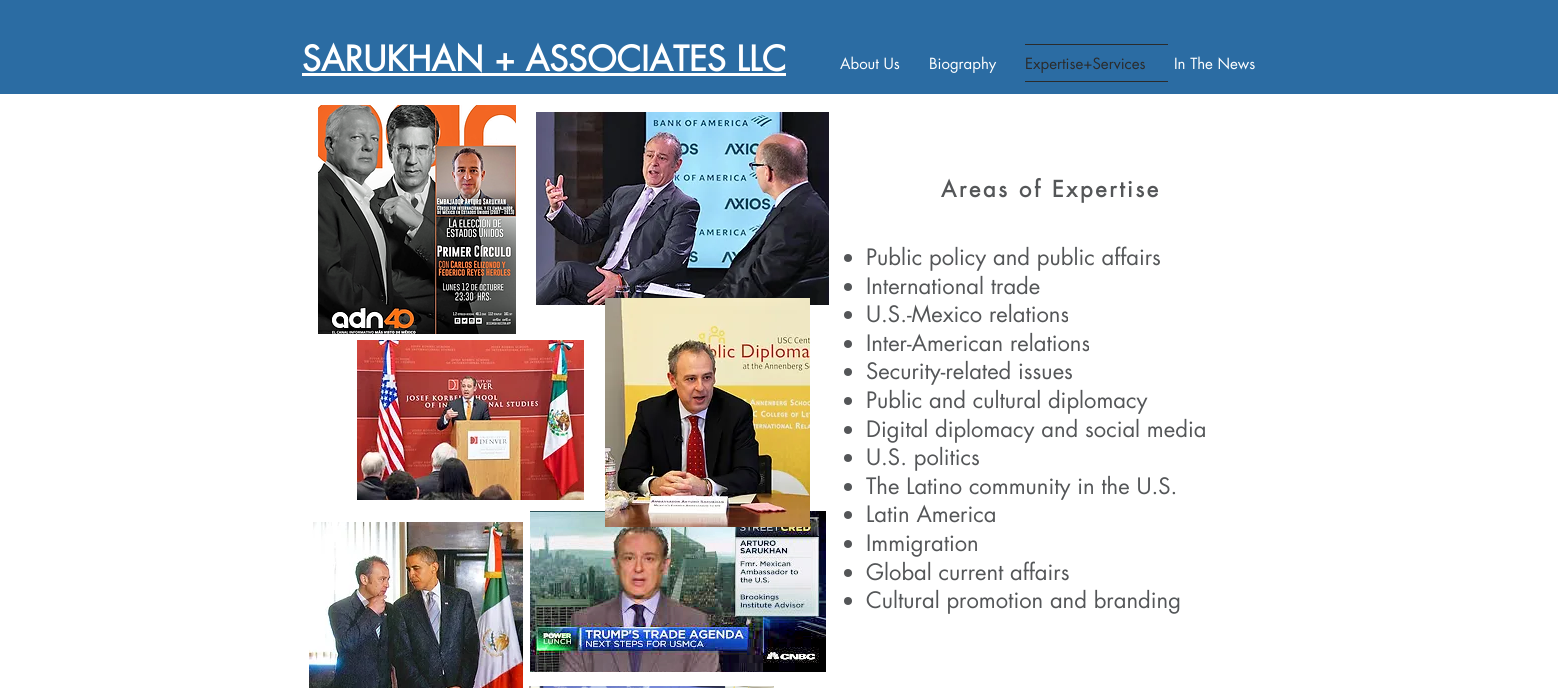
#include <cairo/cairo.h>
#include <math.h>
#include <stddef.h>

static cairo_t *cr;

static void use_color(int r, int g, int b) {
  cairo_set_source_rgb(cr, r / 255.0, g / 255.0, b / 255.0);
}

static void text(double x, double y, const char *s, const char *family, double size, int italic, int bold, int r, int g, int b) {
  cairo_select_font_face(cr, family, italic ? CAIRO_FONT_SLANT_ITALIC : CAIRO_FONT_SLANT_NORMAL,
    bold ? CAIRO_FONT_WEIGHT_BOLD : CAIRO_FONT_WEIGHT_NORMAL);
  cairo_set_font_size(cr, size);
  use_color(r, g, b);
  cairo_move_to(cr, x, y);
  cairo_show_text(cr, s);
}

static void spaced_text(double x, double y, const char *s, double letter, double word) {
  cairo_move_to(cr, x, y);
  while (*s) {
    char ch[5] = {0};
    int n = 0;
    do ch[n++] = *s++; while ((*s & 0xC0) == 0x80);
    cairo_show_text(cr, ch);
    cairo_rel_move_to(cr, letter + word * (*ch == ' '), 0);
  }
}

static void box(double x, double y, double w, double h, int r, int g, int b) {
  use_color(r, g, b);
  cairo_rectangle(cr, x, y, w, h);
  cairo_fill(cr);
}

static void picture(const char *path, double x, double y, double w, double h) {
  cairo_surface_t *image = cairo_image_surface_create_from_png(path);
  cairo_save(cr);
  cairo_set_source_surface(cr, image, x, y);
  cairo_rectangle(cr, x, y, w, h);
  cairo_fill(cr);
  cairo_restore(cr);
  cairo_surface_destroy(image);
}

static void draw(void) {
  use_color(255, 255, 255);
  cairo_paint(cr);
  box(0, 0, 1558, 94, 43, 108, 163);
  box(302, 73, 484, 3, 255, 255, 255);
  box(1025, 44, 143, 1, 42, 43, 44);
  box(1025, 81, 143, 1, 42, 43, 44);
  picture("img_01.png", 318, 105, 198, 229);
  picture("img_02.png", 536, 112, 293, 193);
  picture("img_03.png", 357, 340, 227, 160);
  picture("img_06.png", 530, 511, 296, 161);
  picture("img_04.png", 605, 298, 205, 229);
  picture("img_05.png", 309, 522, 214, 166);
  picture("img_07.png", 529, 686, 245, 2);
  use_color(84, 86, 88);
  cairo_arc(cr, 848, 258, 4, 0, 2 * M_PI);
  cairo_fill(cr);
  cairo_arc(cr, 848, 287, 4, 0, 2 * M_PI);
  cairo_fill(cr);
  cairo_arc(cr, 848, 315, 4, 0, 2 * M_PI);
  cairo_fill(cr);
  cairo_arc(cr, 848, 344, 4, 0, 2 * M_PI);
  cairo_fill(cr);
  cairo_arc(cr, 848, 372, 4, 0, 2 * M_PI);
  cairo_fill(cr);
  cairo_arc(cr, 848, 401, 4, 0, 2 * M_PI);
  cairo_fill(cr);
  cairo_arc(cr, 848, 430, 4, 0, 2 * M_PI);
  cairo_fill(cr);
  cairo_arc(cr, 848, 458, 4, 0, 2 * M_PI);
  cairo_fill(cr);
  cairo_arc(cr, 848, 487, 4, 0, 2 * M_PI);
  cairo_fill(cr);
  cairo_arc(cr, 848, 515, 4, 0, 2 * M_PI);
  cairo_fill(cr);
  cairo_arc(cr, 848, 544, 4, 0, 2 * M_PI);
  cairo_fill(cr);
  cairo_arc(cr, 848, 573, 4, 0, 2 * M_PI);
  cairo_fill(cr);
  cairo_arc(cr, 848, 601, 4, 0, 2 * M_PI);
  cairo_fill(cr);
  text(302, 71, "SARUKHAN + ASSOCIATES LLC", "futura", 34, 0, 1, 255, 255, 255);
  text(840, 69, "About Us", "futura", 15, 0, 0, 255, 255, 255);
  text(929, 69, "Biography", "futura", 15, 0, 0, 255, 255, 255);
  text(1025, 69, "Expertise+Services", "futura", 15, 0, 0, 42, 43, 44);
  text(1174, 69, "In The News", "futura", 15, 0, 0, 255, 255, 255);
  cairo_select_font_face(cr, "futura", CAIRO_FONT_SLANT_NORMAL, CAIRO_FONT_WEIGHT_BOLD);
  cairo_set_font_size(cr, 22);
  use_color(84, 86, 88);
  spaced_text(941, 197, "Areas of Expertise", 2.6, 0);
  text(866, 265, "Public policy and public affairs", "futura", 22, 0, 0, 84, 86, 88);
  text(866, 294, "International trade", "futura", 22, 0, 0, 84, 86, 88);
  text(866, 322, "U.S.-Mexico relations", "futura", 22, 0, 0, 84, 86, 88);
  text(866, 351, "Inter-American relations", "futura", 22, 0, 0, 84, 86, 88);
  text(866, 379, "Security-related issues", "futura", 22, 0, 0, 84, 86, 88);
  text(866, 408, "Public and cultural diplomacy", "futura", 22, 0, 0, 84, 86, 88);
  text(866, 437, "Digital diplomacy and social media", "futura", 22, 0, 0, 84, 86, 88);
  text(866, 465, "U.S. politics", "futura", 22, 0, 0, 84, 86, 88);
  text(866, 494, "The Latino community in the U.S.", "futura", 22, 0, 0, 84, 86, 88);
  text(866, 522, "Latin America", "futura", 22, 0, 0, 84, 86, 88);
  text(866, 551, "Immigration", "futura", 22, 0, 0, 84, 86, 88);
  text(866, 580, "Global current affairs", "futura", 22, 0, 0, 84, 86, 88);
  text(866, 608, "Cultural promotion and branding", "futura", 22, 0, 0, 84, 86, 88);
}

int main(void) {
  cairo_surface_t *surface = cairo_image_surface_create(CAIRO_FORMAT_RGB24, 1558, 688);
  cr = cairo_create(surface);
  cairo_font_options_t *options = cairo_font_options_create();
  cairo_font_options_set_hint_metrics(options, CAIRO_HINT_METRICS_OFF);
  cairo_font_options_set_hint_style(options, CAIRO_HINT_STYLE_NONE);
  cairo_set_font_options(cr, options);
  cairo_set_miter_limit(cr, 4);
  draw();
  cairo_surface_write_to_png(surface, "out.png");
  cairo_font_options_destroy(options);
  cairo_destroy(cr);
  cairo_surface_destroy(surface);
  return 0;
}
